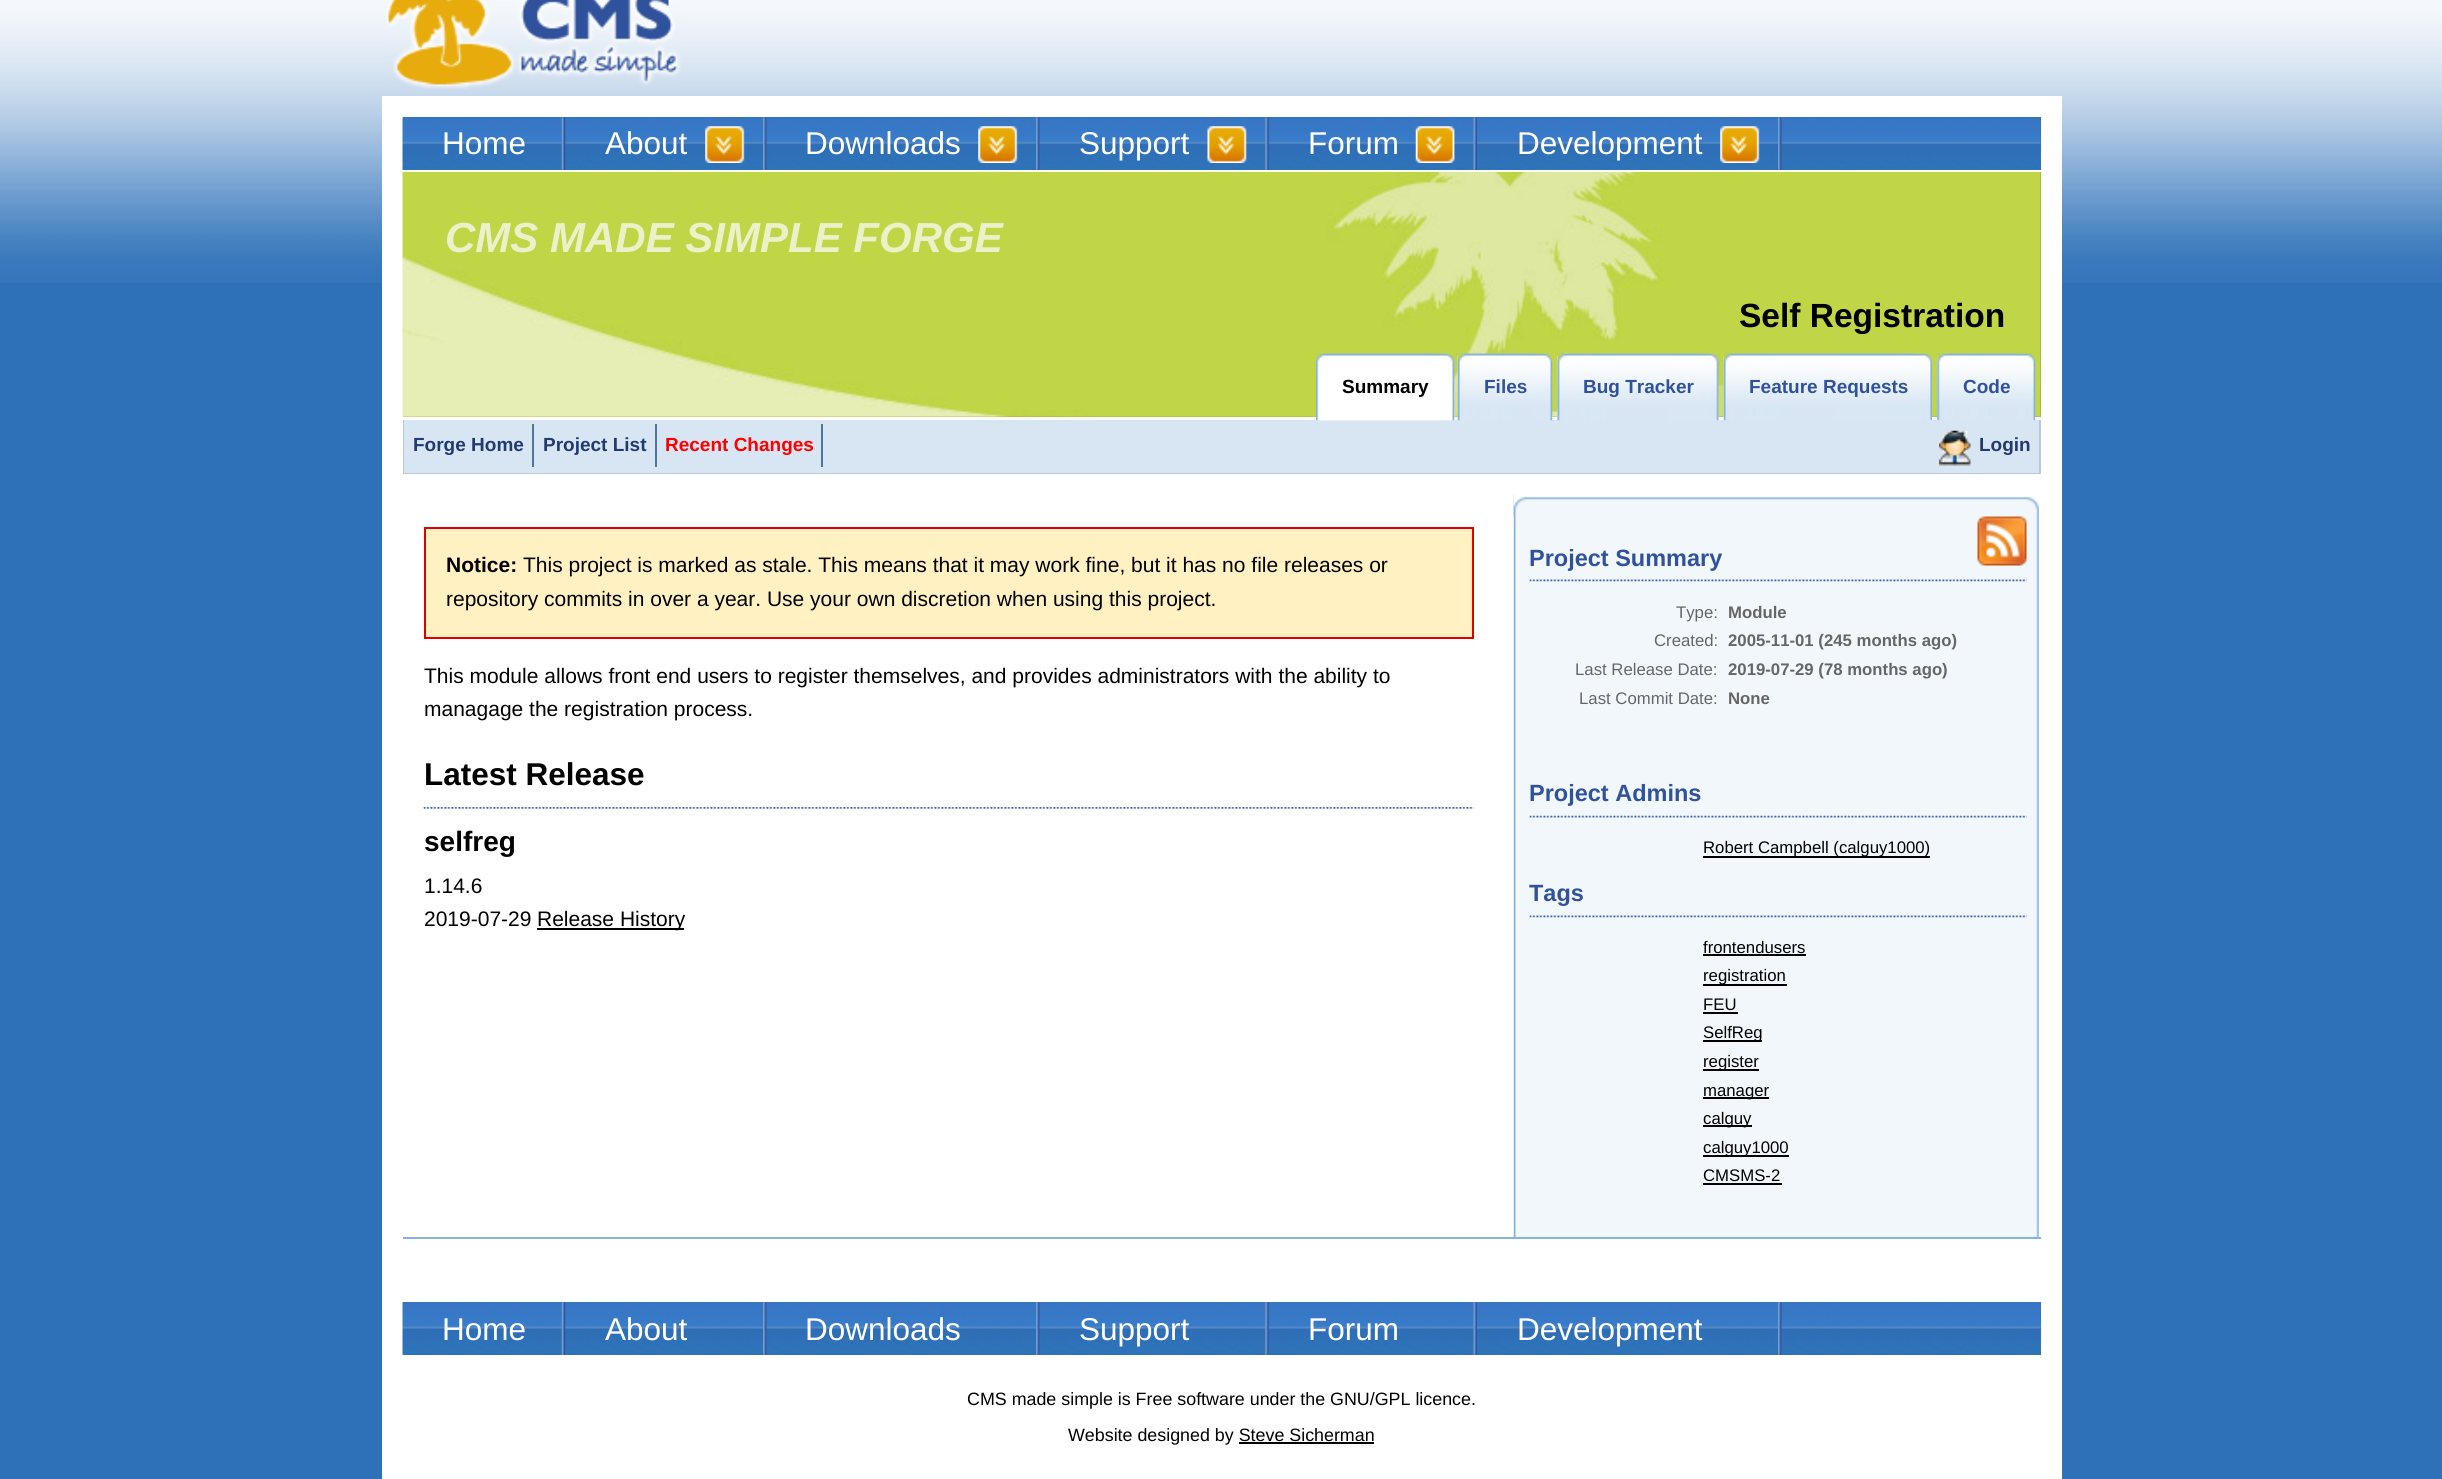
#include <cairo/cairo.h>
#include <math.h>
#include <stddef.h>

static cairo_t *cr;

static void use_color(int r, int g, int b) {
  cairo_set_source_rgb(cr, r / 255.0, g / 255.0, b / 255.0);
}

static void text(double x, double y, const char *s, const char *family, double size, int italic, int bold, int r, int g, int b) {
  cairo_select_font_face(cr, family, italic ? CAIRO_FONT_SLANT_ITALIC : CAIRO_FONT_SLANT_NORMAL,
    bold ? CAIRO_FONT_WEIGHT_BOLD : CAIRO_FONT_WEIGHT_NORMAL);
  cairo_set_font_size(cr, size);
  use_color(r, g, b);
  cairo_move_to(cr, x, y);
  cairo_show_text(cr, s);
}

static void box(double x, double y, double w, double h, int r, int g, int b) {
  use_color(r, g, b);
  cairo_rectangle(cr, x, y, w, h);
  cairo_fill(cr);
}

static void picture(const char *path, double x, double y, double w, double h) {
  cairo_surface_t *image = cairo_image_surface_create_from_png(path);
  cairo_save(cr);
  cairo_set_source_surface(cr, image, x, y);
  cairo_rectangle(cr, x, y, w, h);
  cairo_fill(cr);
  cairo_restore(cr);
  cairo_surface_destroy(image);
}

static void draw(void) {
  use_color(46, 113, 184);
  cairo_paint(cr);
  picture("img_01.png", 0, 0, 2442, 283);
  picture("img_02.png", 386, 0, 295, 89);
  box(382, 96, 1680, 1383, 255, 255, 255);
  box(403, 117, 1638, 53, 46, 114, 184);
  picture("img_03.png", 402, 117, 1639, 53);
  picture("img_04.png", 561, 117, 5, 53);
  picture("img_05.png", 763, 117, 4, 53);
  picture("img_06.png", 705, 126, 40, 37);
  picture("img_05.png", 1036, 117, 4, 53);
  picture("img_07.png", 978, 126, 40, 37);
  picture("img_08.png", 1265, 117, 4, 53);
  picture("img_09.png", 1207, 126, 40, 37);
  picture("img_10.png", 1473, 117, 4, 53);
  picture("img_11.png", 1415, 126, 40, 37);
  picture("img_12.png", 1778, 117, 4, 53);
  picture("img_13.png", 1720, 126, 40, 37);
  box(403, 172, 1638, 245, 147, 166, 38);
  picture("img_14.png", 402, 171, 1639, 246);
  box(403, 171, 1638, 1, 255, 255, 255);
  box(823, 420, 1107, 53, 216, 230, 244);
  picture("img_15.png", 1316, 353, 139, 68);
  picture("img_16.png", 1316, 353, 119, 68);
  picture("img_17.png", 1457, 353, 96, 68);
  picture("img_18.png", 1457, 353, 76, 68);
  picture("img_19.png", 1557, 353, 162, 68);
  picture("img_20.png", 1557, 353, 143, 68);
  picture("img_21.png", 1723, 353, 209, 68);
  picture("img_22.png", 1723, 353, 192, 68);
  picture("img_23.png", 1937, 353, 99, 67);
  picture("img_24.png", 1937, 353, 81, 67);
  picture("img_25.png", 1513, 495, 526, 742);
  box(2039, 420, 2, 54, 183, 200, 217);
  box(403, 473, 1638, 1, 183, 200, 217);
  box(403, 420, 2, 54, 183, 200, 217);
  box(404, 420, 419, 53, 216, 230, 244);
  box(532, 424, 2, 43, 78, 117, 156);
  box(655, 424, 2, 43, 78, 117, 156);
  box(821, 424, 2, 43, 78, 117, 156);
  box(1930, 420, 109, 53, 216, 230, 244);
  picture("img_26.png", 1939, 430, 32, 36);
  use_color(255, 241, 193);
  cairo_rectangle(cr, 425, 528, 1048, 110);
  cairo_fill_preserve(cr);
  use_color(224, 0, 0);
  cairo_stroke(cr);
  picture("img_27.png", 423, 807, 1051, 2);
  box(537, 928, 147, 2, 0, 0, 0);
  box(1514, 495, 525, 21, 255, 255, 255);
  picture("img_28.png", 1513, 496, 526, 21);
  picture("img_29.png", 1529, 579, 498, 3);
  picture("img_30.png", 1977, 516, 50, 50);
  picture("img_31.png", 1529, 815, 498, 3);
  box(1703, 856, 227, 2, 0, 0, 0);
  picture("img_29.png", 1529, 915, 498, 3);
  box(1703, 954, 103, 2, 0, 0, 0);
  box(1703, 984, 84, 2, 0, 0, 0);
  box(1703, 1012, 35, 2, 0, 0, 0);
  box(1703, 1040, 59, 2, 0, 0, 0);
  box(1703, 1069, 56, 2, 0, 0, 0);
  box(1703, 1097, 66, 2, 0, 0, 0);
  box(1703, 1125, 49, 2, 0, 0, 0);
  box(1703, 1155, 86, 2, 0, 0, 0);
  box(1703, 1183, 79, 2, 0, 0, 0);
  box(403, 1237, 1638, 2, 136, 179, 222);
  box(403, 1302, 1638, 53, 46, 114, 184);
  picture("img_32.png", 402, 1302, 1639, 53);
  picture("img_33.png", 561, 1302, 5, 53);
  picture("img_34.png", 763, 1302, 4, 53);
  picture("img_34.png", 1036, 1302, 4, 53);
  picture("img_35.png", 1265, 1302, 4, 53);
  picture("img_36.png", 1473, 1302, 4, 53);
  picture("img_37.png", 1778, 1302, 4, 53);
  box(1239, 1442, 135, 2, 0, 0, 0);
  text(442, 154, "Home", "Liberation Sans", 31.5, 0, 0, 255, 255, 255);
  text(605, 154, "About", "Liberation Sans", 31.5, 0, 0, 255, 255, 255);
  text(805, 154, "Downloads", "Liberation Sans", 31.5, 0, 0, 255, 255, 255);
  text(1079, 154, "Support", "Liberation Sans", 31.5, 0, 0, 255, 255, 255);
  text(1308, 154, "Forum", "Liberation Sans", 31.5, 0, 0, 255, 255, 255);
  text(1517, 154, "Development", "Liberation Sans", 31.5, 0, 0, 255, 255, 255);
  text(445, 252, "CMS MADE SIMPLE FORGE", "Liberation Sans", 42, 1, 1, 235, 241, 201);
  text(1739, 327, "Self Registration", "Liberation Sans", 33.5, 0, 1, 0, 0, 0);
  text(1342, 393, "Summary", "Liberation Sans", 19, 0, 1, 0, 0, 0);
  text(1484, 393, "Files", "Liberation Sans", 19, 0, 1, 48, 82, 156);
  text(1583, 393, "Bug Tracker", "Liberation Sans", 19, 0, 1, 48, 82, 156);
  text(1749, 393, "Feature Requests", "Liberation Sans", 19, 0, 1, 48, 82, 156);
  text(1963, 393, "Code", "Liberation Sans", 19, 0, 1, 48, 82, 156);
  text(413, 451, "Forge Home", "Liberation Sans", 19, 0, 1, 34, 58, 111);
  text(543, 451, "Project List", "Liberation Sans", 19, 0, 1, 34, 58, 111);
  text(665, 451, "Recent Changes", "Liberation Sans", 19, 0, 1, 255, 0, 0);
  text(1979, 451, "Login", "Liberation Sans", 19, 0, 1, 34, 58, 111);
  text(446, 572, "Notice:", "Liberation Sans", 21, 0, 1, 0, 0, 0);
  text(523, 572, "This project is marked as stale. This means that it may work fine, but it has no file releases or", "Liberation Sans", 21, 0, 0, 0, 0, 0);
  text(446, 606, "repository commits in over a year. Use your own discretion when using this project.", "Liberation Sans", 21, 0, 0, 0, 0, 0);
  text(424, 683, "This module allows front end users to register themselves, and provides administrators with the ability to", "Liberation Sans", 21, 0, 0, 0, 0, 0);
  text(424, 716, "managage the registration process.", "Liberation Sans", 21, 0, 0, 0, 0, 0);
  text(424, 785, "Latest Release", "Liberation Sans", 31.5, 0, 1, 0, 0, 0);
  text(424, 851, "selfreg", "Liberation Sans", 28, 0, 1, 0, 0, 0);
  text(424, 893, "1.14.6", "Liberation Sans", 21, 0, 0, 0, 0, 0);
  text(424, 926, "2019-07-29", "Liberation Sans", 21, 0, 0, 0, 0, 0);
  text(537, 926, "Release History", "Liberation Sans", 21, 0, 0, 0, 0, 0);
  text(1529, 566, "Project Summary", "Liberation Sans", 23.5, 0, 1, 48, 82, 156);
  text(1676, 618, "Type:", "Liberation Sans", 16.75, 0, 0, 102, 102, 102);
  text(1728, 618, "Module", "Liberation Sans", 16.75, 0, 1, 102, 102, 102);
  text(1654, 646, "Created:", "Liberation Sans", 16.75, 0, 0, 102, 102, 102);
  text(1728, 646, "2005-11-01 (245 months ago)", "Liberation Sans", 16.75, 0, 1, 102, 102, 102);
  text(1575, 675, "Last Release Date:", "Liberation Sans", 16.75, 0, 0, 102, 102, 102);
  text(1728, 675, "2019-07-29 (78 months ago)", "Liberation Sans", 16.75, 0, 1, 102, 102, 102);
  text(1579, 704, "Last Commit Date:", "Liberation Sans", 16.75, 0, 0, 102, 102, 102);
  text(1728, 704, "None", "Liberation Sans", 16.75, 0, 1, 102, 102, 102);
  text(1529, 801, "Project Admins", "Liberation Sans", 23.5, 0, 1, 48, 82, 156);
  text(1703, 853, "Robert Campbell (calguy1000)", "Liberation Sans", 16.75, 0, 0, 0, 0, 0);
  text(1529, 901, "Tags", "Liberation Sans", 23.5, 0, 1, 48, 82, 156);
  text(1703, 953, "frontendusers", "Liberation Sans", 16.75, 0, 0, 0, 0, 0);
  text(1703, 981, "registration", "Liberation Sans", 16.75, 0, 0, 0, 0, 0);
  text(1703, 1010, "FEU", "Liberation Sans", 16.75, 0, 0, 0, 0, 0);
  text(1703, 1038, "SelfReg", "Liberation Sans", 16.75, 0, 0, 0, 0, 0);
  text(1703, 1067, "register", "Liberation Sans", 16.75, 0, 0, 0, 0, 0);
  text(1703, 1096, "manager", "Liberation Sans", 16.75, 0, 0, 0, 0, 0);
  text(1703, 1124, "calguy", "Liberation Sans", 16.75, 0, 0, 0, 0, 0);
  text(1703, 1153, "calguy1000", "Liberation Sans", 16.75, 0, 0, 0, 0, 0);
  text(1703, 1181, "CMSMS-2", "Liberation Sans", 16.75, 0, 0, 0, 0, 0);
  text(442, 1340, "Home", "Liberation Sans", 31.5, 0, 0, 255, 255, 255);
  text(605, 1340, "About", "Liberation Sans", 31.5, 0, 0, 255, 255, 255);
  text(805, 1340, "Downloads", "Liberation Sans", 31.5, 0, 0, 255, 255, 255);
  text(1079, 1340, "Support", "Liberation Sans", 31.5, 0, 0, 255, 255, 255);
  text(1308, 1340, "Forum", "Liberation Sans", 31.5, 0, 0, 255, 255, 255);
  text(1517, 1340, "Development", "Liberation Sans", 31.5, 0, 0, 255, 255, 255);
  text(967, 1405, "CMS made simple is Free software under the GNU/GPL licence.", "Liberation Sans", 17.85, 0, 0, 0, 0, 0);
  text(1068, 1441, "Website designed by Steve Sicherman", "Liberation Sans", 17.85, 0, 0, 0, 0, 0);
}

int main(void) {
  cairo_surface_t *surface = cairo_image_surface_create(CAIRO_FORMAT_RGB24, 2442, 1479);
  cr = cairo_create(surface);
  cairo_font_options_t *options = cairo_font_options_create();
  cairo_font_options_set_hint_metrics(options, CAIRO_HINT_METRICS_OFF);
  cairo_font_options_set_hint_style(options, CAIRO_HINT_STYLE_NONE);
  cairo_set_font_options(cr, options);
  cairo_set_miter_limit(cr, 4);
  draw();
  cairo_surface_write_to_png(surface, "out.png");
  cairo_font_options_destroy(options);
  cairo_destroy(cr);
  cairo_surface_destroy(surface);
  return 0;
}
